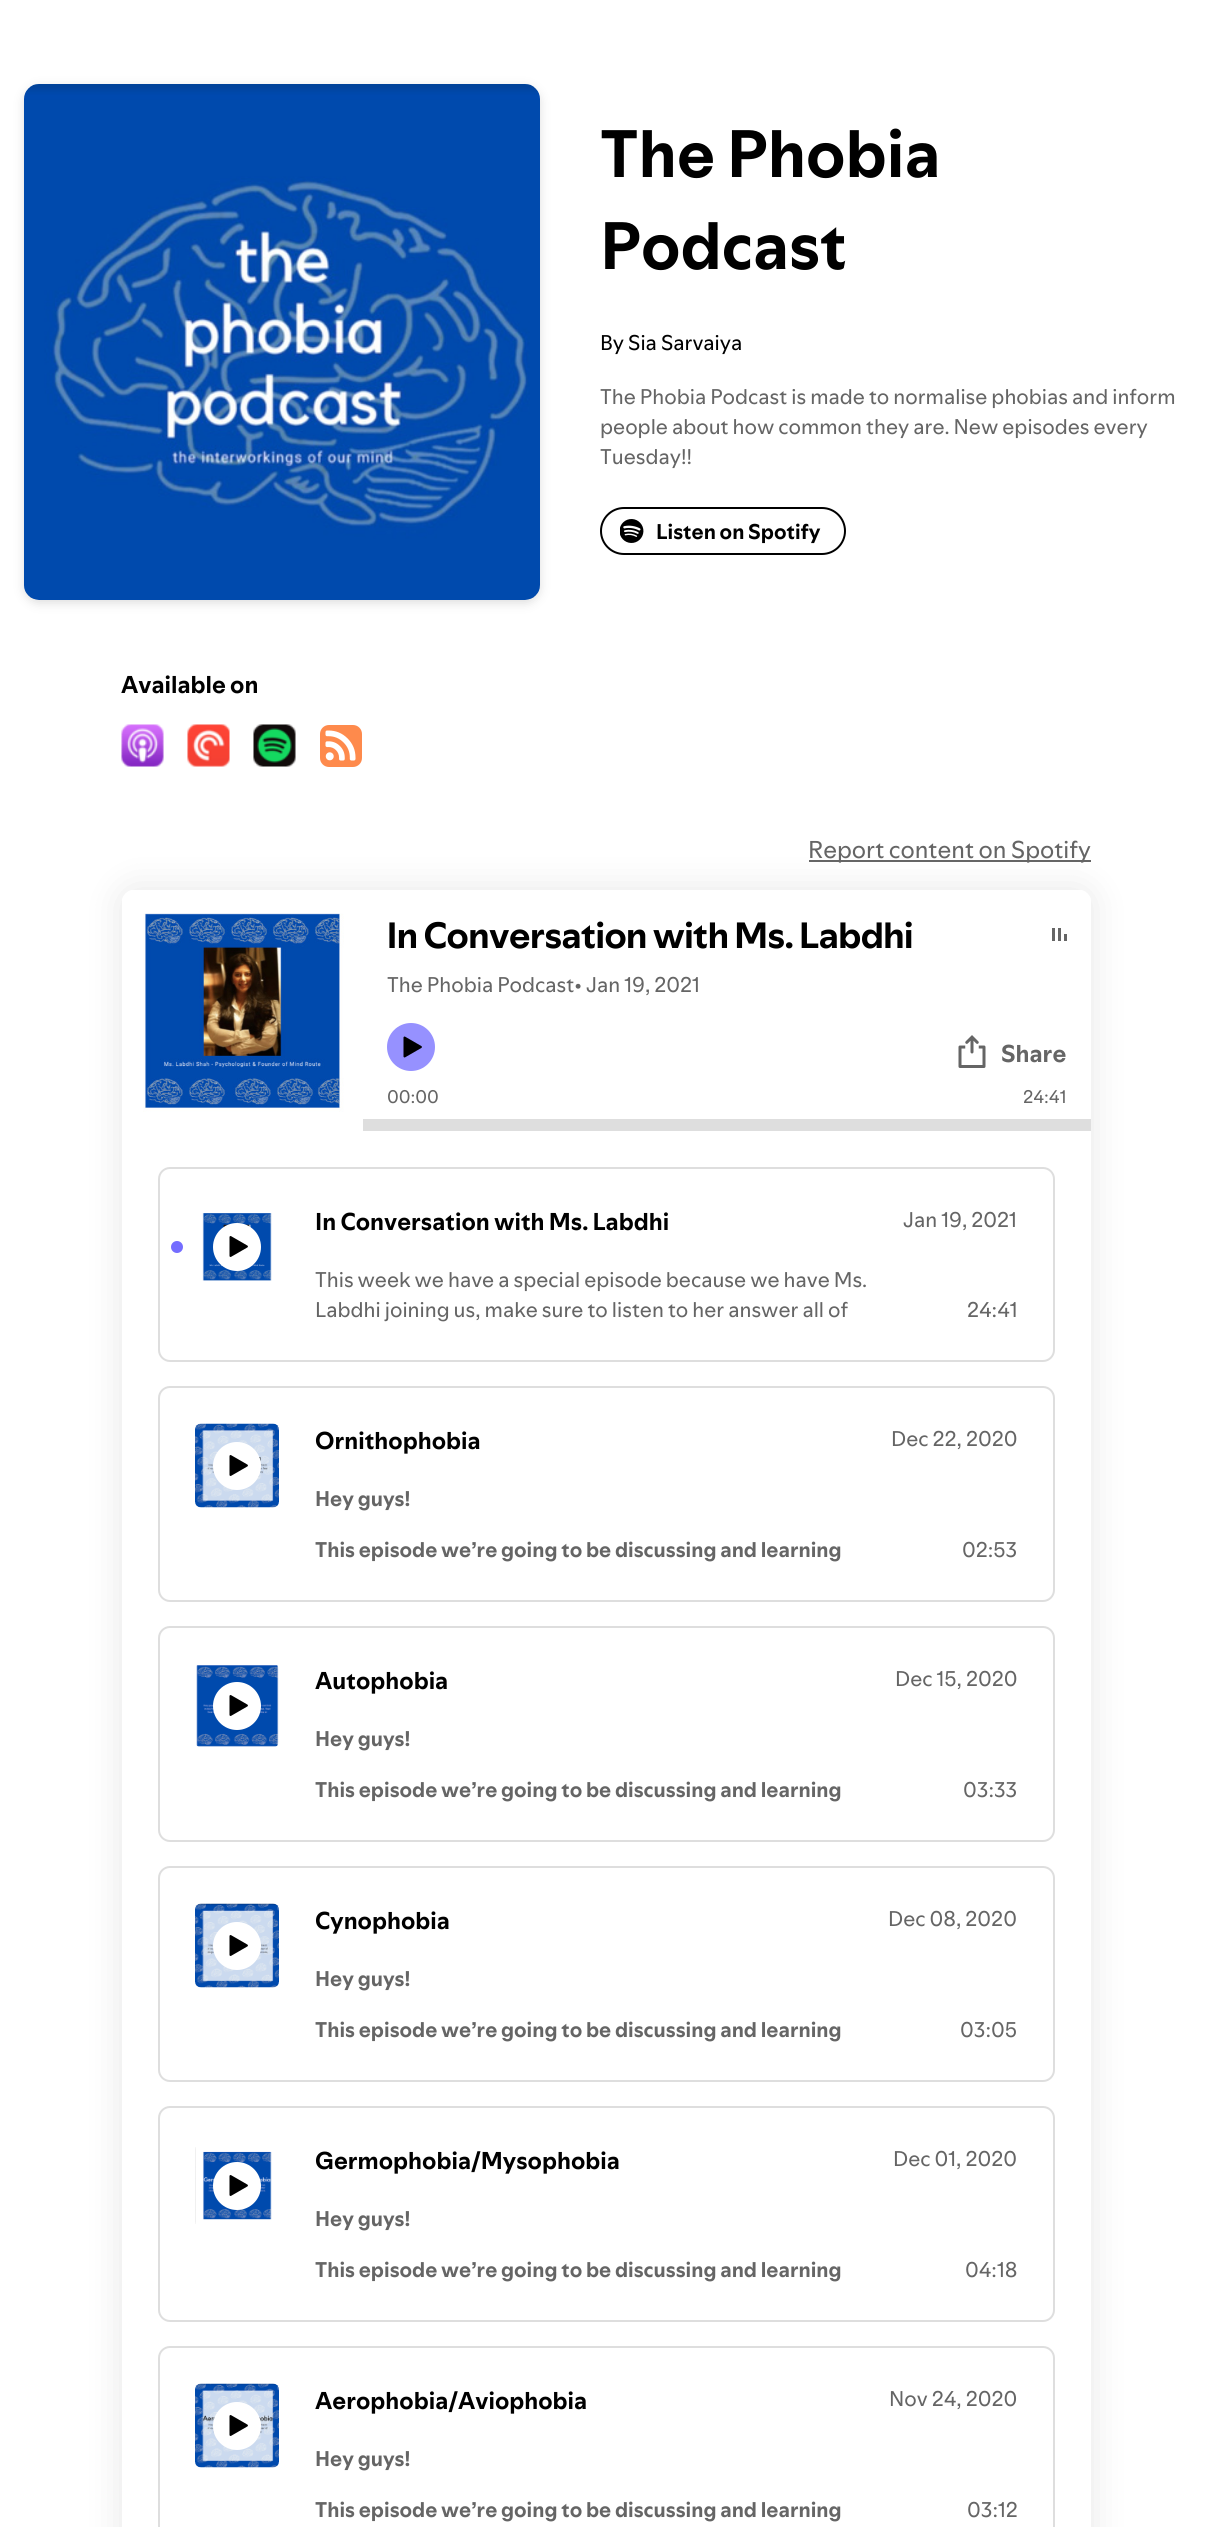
#include <cairo/cairo.h>
#include <math.h>
#include <stddef.h>

static cairo_t *cr;

static void use_color(int r, int g, int b) {
  cairo_set_source_rgb(cr, r / 255.0, g / 255.0, b / 255.0);
}

static void text(double x, double y, const char *s, const char *family, double size, int italic, int bold, int r, int g, int b) {
  cairo_select_font_face(cr, family, italic ? CAIRO_FONT_SLANT_ITALIC : CAIRO_FONT_SLANT_NORMAL,
    bold ? CAIRO_FONT_WEIGHT_BOLD : CAIRO_FONT_WEIGHT_NORMAL);
  cairo_set_font_size(cr, size);
  use_color(r, g, b);
  cairo_move_to(cr, x, y);
  cairo_show_text(cr, s);
}

static void box(double x, double y, double w, double h, int r, int g, int b) {
  use_color(r, g, b);
  cairo_rectangle(cr, x, y, w, h);
  cairo_fill(cr);
}

static void round_rect(double x, double y, double w, double h, double r) {
  cairo_new_sub_path(cr);
  cairo_arc(cr, x + w - r, y + h - r, r, 0, M_PI / 2);
  cairo_arc(cr, x + r, y + h - r, r, M_PI / 2, M_PI);
  cairo_arc(cr, x + r, y + r, r, M_PI, 1.5 * M_PI);
  cairo_arc(cr, x + w - r, y + r, r, 1.5 * M_PI, 2 * M_PI);
  cairo_close_path(cr);
}

static void shadow(double x, double y, double w, double h, double r, double blur, double alpha) {
  cairo_push_group_with_content(cr, CAIRO_CONTENT_ALPHA);
  cairo_set_operator(cr, CAIRO_OPERATOR_SOURCE);
  for (int i = 15; i >= -15 && fmin(w, h) + blur * i / 3 > 0; i -= 2) {
    double e = blur * i / 6;
    cairo_set_source_rgba(cr, 0, 0, 0, alpha * erfc((i - 1) / 8.5) / 2);
    round_rect(x - e, y - e, w + 2 * e, h + 2 * e, fmax(0, fmin(r + e + blur * .6, fmin(w, h) / 2 + e)));
    cairo_fill(cr);
  }
  cairo_pattern_t *soft = cairo_pop_group(cr);
  cairo_mask(cr, soft);
  cairo_pattern_destroy(soft);
}

static void picture(const char *path, double x, double y, double w, double h) {
  cairo_surface_t *image = cairo_image_surface_create_from_png(path);
  cairo_save(cr);
  cairo_set_source_surface(cr, image, x, y);
  cairo_rectangle(cr, x, y, w, h);
  cairo_fill(cr);
  cairo_restore(cr);
  cairo_surface_destroy(image);
}

static void draw(void) {
  use_color(255, 255, 255);
  cairo_paint(cr);
  use_color(222, 222, 222);
  shadow(24, 87, 516, 516, 15, 5, 1);
  picture("img_01.png", 24, 84, 516, 516);
  round_rect(601, 508, 244, 46, 23);
  use_color(0, 0, 0);
  cairo_stroke(cr);
  picture("img_02.png", 620, 519, 24, 24);
  picture("img_03.png", 121, 724, 43, 43);
  picture("img_04.png", 187, 724, 43, 43);
  picture("img_05.png", 253, 724, 43, 43);
  picture("img_06.png", 320, 725, 42, 42);
  box(809, 860, 282, 2, 101, 101, 101);
  cairo_save(cr);
  cairo_set_fill_rule(cr, CAIRO_FILL_RULE_EVEN_ODD);
  cairo_new_path(cr);
  cairo_move_to(cr, 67, 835);
  cairo_line_to(cr, 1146, 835);
  cairo_line_to(cr, 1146, 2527);
  cairo_line_to(cr, 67, 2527);
  cairo_close_path(cr);
  cairo_move_to(cr, 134, 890);
  cairo_line_to(cr, 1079, 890);
  cairo_curve_to(cr, 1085.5, 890, 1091, 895.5, 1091, 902);
  cairo_line_to(cr, 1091, 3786);
  cairo_curve_to(cr, 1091, 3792.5, 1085.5, 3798, 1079, 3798);
  cairo_line_to(cr, 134, 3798);
  cairo_curve_to(cr, 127.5, 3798, 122, 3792.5, 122, 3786);
  cairo_line_to(cr, 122, 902);
  cairo_curve_to(cr, 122, 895.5, 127.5, 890, 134, 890);
  cairo_close_path(cr);
  cairo_clip(cr);
  use_color(0, 0, 0);
  shadow(122, 890, 969, 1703, 12, 18, 0.1);
  cairo_restore(cr);
  use_color(255, 255, 255);
  cairo_new_path(cr);
  cairo_move_to(cr, 134, 890);
  cairo_line_to(cr, 1079, 890);
  cairo_curve_to(cr, 1085.5, 890, 1091, 895.5, 1091, 902);
  cairo_line_to(cr, 1091, 1131);
  cairo_line_to(cr, 122, 1131);
  cairo_line_to(cr, 122, 902);
  cairo_curve_to(cr, 122, 895.5, 127.5, 890, 134, 890);
  cairo_close_path(cr);
  cairo_fill(cr);
  picture("img_07.png", 143, 913, 201, 199);
  box(1052, 928, 3, 13, 101, 101, 101);
  box(1058, 928, 3, 13, 101, 101, 101);
  box(1064, 934, 3, 7, 101, 101, 101);
  use_color(150, 145, 255);
  cairo_arc(cr, 411, 1047, 24, 0, 2 * M_PI);
  cairo_fill(cr);
  picture("img_08.png", 403, 1036, 19, 22);
  picture("img_09.png", 958, 1035, 28, 33);
  box(363, 1119, 728, 12, 222, 222, 222);
  round_rect(159, 1168, 895, 193, 11);
  cairo_stroke(cr);
  use_color(116, 109, 255);
  cairo_arc(cr, 177, 1247, 6, 0, 2 * M_PI);
  cairo_fill(cr);
  picture("img_10.png", 202, 1213, 70, 68);
  use_color(255, 255, 255);
  cairo_arc(cr, 237, 1247, 24, 0, 2 * M_PI);
  cairo_fill(cr);
  picture("img_11.png", 229, 1236, 19, 21);
  round_rect(159, 1387, 895, 214, 11);
  use_color(222, 222, 222);
  cairo_stroke(cr);
  picture("img_12.png", 195, 1423, 84, 85);
  use_color(255, 255, 255);
  cairo_arc(cr, 237, 1466, 24, 0, 2 * M_PI);
  cairo_fill(cr);
  picture("img_11.png", 229, 1455, 19, 21);
  round_rect(159, 1627, 895, 214, 11);
  use_color(222, 222, 222);
  cairo_stroke(cr);
  picture("img_13.png", 196, 1665, 83, 82);
  use_color(255, 255, 255);
  cairo_arc(cr, 237, 1706, 24, 0, 2 * M_PI);
  cairo_fill(cr);
  picture("img_11.png", 229, 1695, 19, 21);
  round_rect(159, 1867, 895, 214, 11);
  use_color(222, 222, 222);
  cairo_stroke(cr);
  picture("img_14.png", 195, 1903, 84, 85);
  use_color(255, 255, 255);
  cairo_arc(cr, 237, 1946, 24, 0, 2 * M_PI);
  cairo_fill(cr);
  picture("img_11.png", 229, 1935, 19, 21);
  round_rect(159, 2107, 895, 214, 11);
  use_color(222, 222, 222);
  cairo_stroke(cr);
  picture("img_15.png", 195, 2147, 77, 77);
  use_color(255, 255, 255);
  cairo_arc(cr, 237, 2186, 24, 0, 2 * M_PI);
  cairo_fill(cr);
  picture("img_11.png", 229, 2175, 19, 21);
  round_rect(159, 2347, 895, 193, 11);
  use_color(222, 222, 222);
  cairo_stroke(cr);
  picture("img_16.png", 195, 2383, 84, 85);
  use_color(255, 255, 255);
  cairo_arc(cr, 237, 2426, 24, 0, 2 * M_PI);
  cairo_fill(cr);
  picture("img_11.png", 229, 2415, 19, 21);
  text(600, 177, "The Phobia", "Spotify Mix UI", 66, 0, 1, 0, 0, 0);
  text(600, 269, "Podcast", "Spotify Mix UI", 66, 0, 1, 0, 0, 0);
  text(600, 350, "By Sia Sarvaiya", "Spotify Mix UI", 21, 0, 0, 0, 0, 0);
  text(600, 404, "The Phobia Podcast is made to normalise phobias and inform", "Spotify Mix UI", 21, 0, 0, 101, 101, 101);
  text(600, 434, "people about how common they are. New episodes every", "Spotify Mix UI", 21, 0, 0, 101, 101, 101);
  text(600, 464, "Tuesday!!", "Spotify Mix UI", 21, 0, 0, 101, 101, 101);
  text(656, 539, "Listen on Spotify", "Spotify Mix UI", 21, 0, 1, 0, 0, 0);
  text(121, 693, "Available on", "Spotify Mix UI", 24, 0, 1, 0, 0, 0);
  text(808, 858, "Report content on Spotify", "Spotify Mix UI", 24, 0, 0, 101, 101, 101);
  text(387, 948, "In Conversation with Ms. Labdhi", "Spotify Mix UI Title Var", 36, 0, 1, 0, 0, 0);
  text(387, 992, "The Phobia Podcast• Jan 19, 2021", "Spotify Mix UI", 21, 0, 0, 101, 101, 101);
  text(1001, 1062, "Share", "Spotify Mix UI", 24, 0, 1, 101, 101, 101);
  text(387, 1103, "00:00", "Spotify Mix UI", 18, 0, 0, 101, 101, 101);
  text(1023, 1103, "24:41", "Spotify Mix UI", 18, 0, 0, 101, 101, 101);
  text(315, 1230, "In Conversation with Ms. Labdhi", "Spotify Mix UI", 24, 0, 1, 0, 0, 0);
  text(315, 1287, "This week we have a special episode because we have Ms.", "Spotify Mix UI", 21, 0, 0, 101, 101, 101);
  text(315, 1317, "Labdhi joining us, make sure to listen to her answer all of", "Spotify Mix UI", 21, 0, 0, 101, 101, 101);
  text(903, 1227, "Jan 19, 2021", "Spotify Mix UI", 21, 0, 0, 101, 101, 101);
  text(967, 1317, "24:41", "Spotify Mix UI", 21, 0, 0, 101, 101, 101);
  text(315, 1449, "Ornithophobia", "Spotify Mix UI", 24, 0, 1, 0, 0, 0);
  text(315, 1506, "Hey guys!", "Spotify Mix UI", 21, 0, 1, 101, 101, 101);
  text(315, 1557, "This episode we’re going to be discussing and learning", "Spotify Mix UI", 21, 0, 1, 101, 101, 101);
  text(891, 1446, "Dec 22, 2020", "Spotify Mix UI", 21, 0, 0, 101, 101, 101);
  text(962, 1557, "02:53", "Spotify Mix UI", 21, 0, 0, 101, 101, 101);
  text(315, 1689, "Autophobia", "Spotify Mix UI", 24, 0, 1, 0, 0, 0);
  text(315, 1746, "Hey guys!", "Spotify Mix UI", 21, 0, 1, 101, 101, 101);
  text(315, 1797, "This episode we’re going to be discussing and learning", "Spotify Mix UI", 21, 0, 1, 101, 101, 101);
  text(895, 1686, "Dec 15, 2020", "Spotify Mix UI", 21, 0, 0, 101, 101, 101);
  text(963, 1797, "03:33", "Spotify Mix UI", 21, 0, 0, 101, 101, 101);
  text(315, 1929, "Cynophobia", "Spotify Mix UI", 24, 0, 1, 0, 0, 0);
  text(315, 1986, "Hey guys!", "Spotify Mix UI", 21, 0, 1, 101, 101, 101);
  text(315, 2037, "This episode we’re going to be discussing and learning", "Spotify Mix UI", 21, 0, 1, 101, 101, 101);
  text(888, 1926, "Dec 08, 2020", "Spotify Mix UI", 21, 0, 0, 101, 101, 101);
  text(960, 2037, "03:05", "Spotify Mix UI", 21, 0, 0, 101, 101, 101);
  text(315, 2169, "Germophobia/Mysophobia", "Spotify Mix UI", 24, 0, 1, 0, 0, 0);
  text(315, 2226, "Hey guys!", "Spotify Mix UI", 21, 0, 1, 101, 101, 101);
  text(315, 2277, "This episode we’re going to be discussing and learning", "Spotify Mix UI", 21, 0, 1, 101, 101, 101);
  text(893, 2166, "Dec 01, 2020", "Spotify Mix UI", 21, 0, 0, 101, 101, 101);
  text(965, 2277, "04:18", "Spotify Mix UI", 21, 0, 0, 101, 101, 101);
  text(315, 2409, "Aerophobia/Aviophobia", "Spotify Mix UI", 24, 0, 1, 0, 0, 0);
  text(315, 2466, "Hey guys!", "Spotify Mix UI", 21, 0, 1, 101, 101, 101);
  text(315, 2517, "This episode we’re going to be discussing and learning", "Spotify Mix UI", 21, 0, 1, 101, 101, 101);
  text(889, 2406, "Nov 24, 2020", "Spotify Mix UI", 21, 0, 0, 101, 101, 101);
  text(967, 2517, "03:12", "Spotify Mix UI", 21, 0, 0, 101, 101, 101);
}

int main(void) {
  cairo_surface_t *surface = cairo_image_surface_create(CAIRO_FORMAT_RGB24, 1212, 2527);
  cr = cairo_create(surface);
  cairo_font_options_t *options = cairo_font_options_create();
  cairo_font_options_set_hint_metrics(options, CAIRO_HINT_METRICS_OFF);
  cairo_font_options_set_hint_style(options, CAIRO_HINT_STYLE_NONE);
  cairo_set_font_options(cr, options);
  cairo_set_miter_limit(cr, 4);
  draw();
  cairo_surface_write_to_png(surface, "out.png");
  cairo_font_options_destroy(options);
  cairo_destroy(cr);
  cairo_surface_destroy(surface);
  return 0;
}
